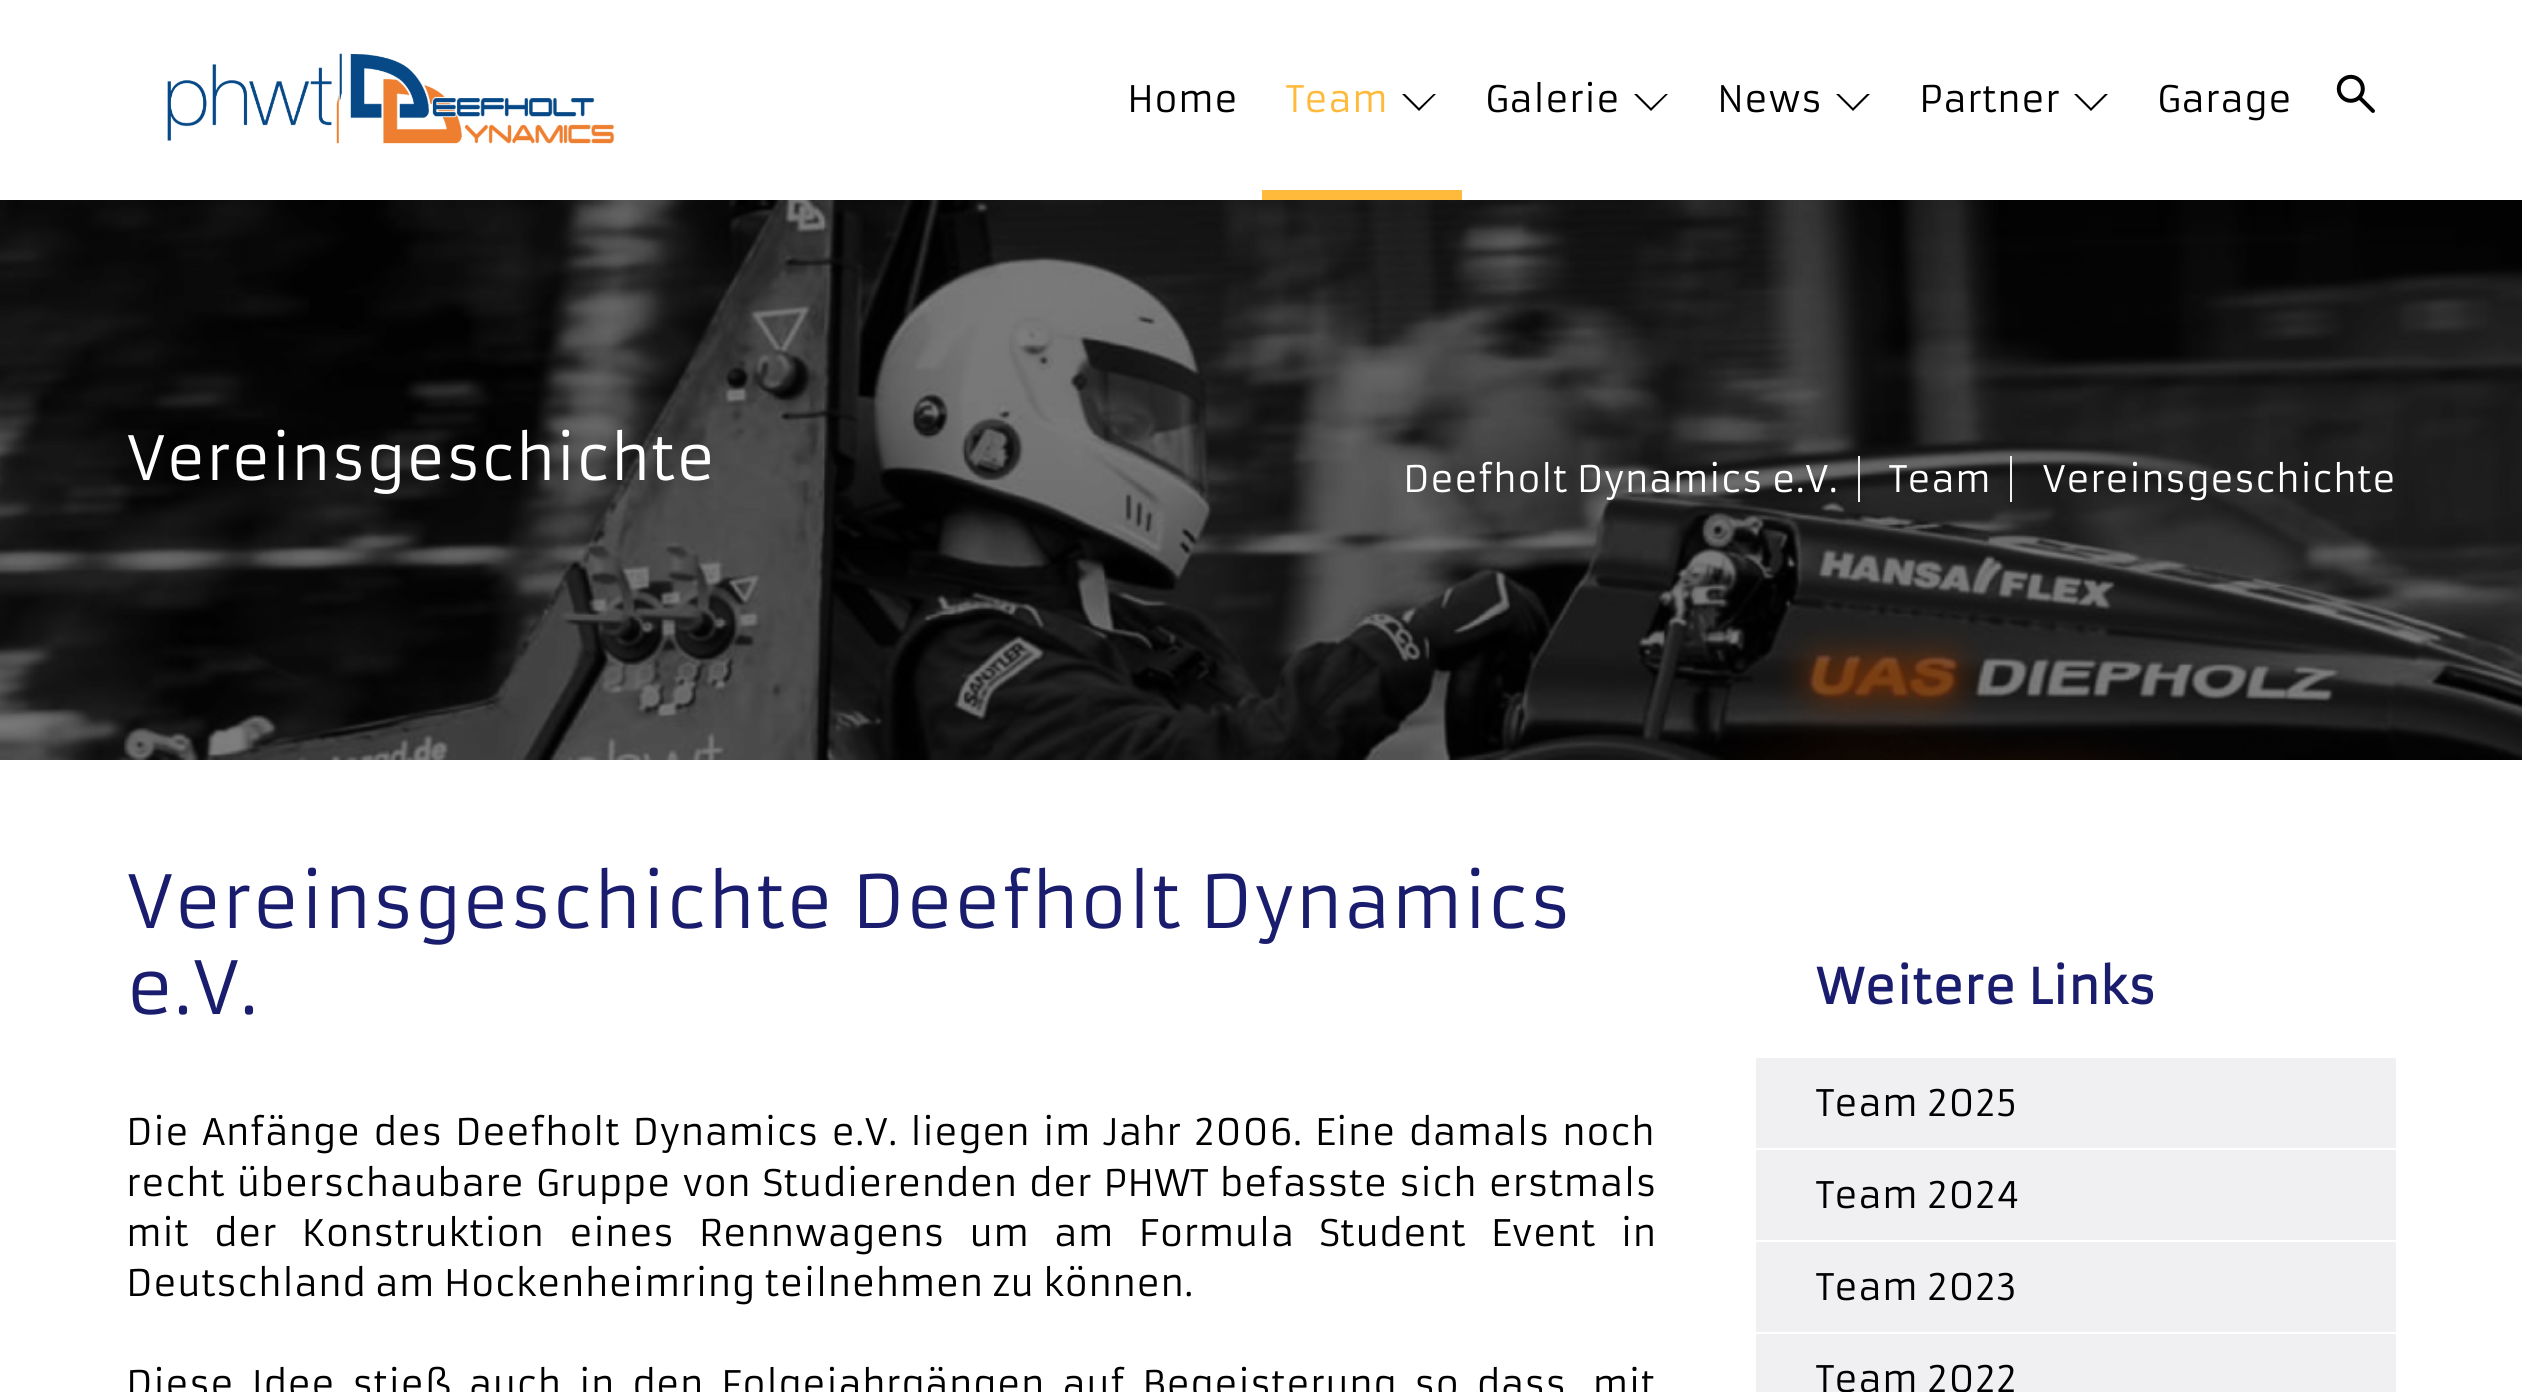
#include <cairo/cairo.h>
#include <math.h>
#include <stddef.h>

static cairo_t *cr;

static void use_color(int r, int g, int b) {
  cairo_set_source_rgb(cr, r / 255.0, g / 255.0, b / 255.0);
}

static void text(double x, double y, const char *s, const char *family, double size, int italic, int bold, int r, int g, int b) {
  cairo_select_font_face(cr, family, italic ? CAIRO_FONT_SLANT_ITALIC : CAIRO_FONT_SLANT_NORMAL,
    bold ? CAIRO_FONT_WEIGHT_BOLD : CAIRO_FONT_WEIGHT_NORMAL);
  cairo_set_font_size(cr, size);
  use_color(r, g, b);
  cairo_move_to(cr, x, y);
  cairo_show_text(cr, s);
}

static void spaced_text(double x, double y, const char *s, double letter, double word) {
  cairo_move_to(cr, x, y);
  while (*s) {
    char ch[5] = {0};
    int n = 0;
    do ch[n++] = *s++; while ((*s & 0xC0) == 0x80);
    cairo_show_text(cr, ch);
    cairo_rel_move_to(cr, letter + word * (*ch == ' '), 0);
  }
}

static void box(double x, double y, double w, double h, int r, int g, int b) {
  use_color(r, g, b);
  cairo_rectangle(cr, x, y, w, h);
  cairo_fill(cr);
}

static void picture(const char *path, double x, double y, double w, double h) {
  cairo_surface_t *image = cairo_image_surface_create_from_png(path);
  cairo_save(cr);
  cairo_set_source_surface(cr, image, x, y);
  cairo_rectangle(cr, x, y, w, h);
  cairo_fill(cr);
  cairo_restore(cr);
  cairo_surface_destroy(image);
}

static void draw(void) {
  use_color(255, 255, 255);
  cairo_paint(cr);
  picture("img_01.png", 167, 53, 448, 91);
  use_color(0, 0, 0);
  cairo_new_path(cr);
  cairo_move_to(cr, 1436, 94);
  cairo_line_to(cr, 1419, 111);
  cairo_line_to(cr, 1419, 108);
  cairo_line_to(cr, 1433.5, 94);
  cairo_close_path(cr);
  cairo_move_to(cr, 1419, 111);
  cairo_line_to(cr, 1402, 94);
  cairo_line_to(cr, 1405, 94);
  cairo_line_to(cr, 1419, 108);
  cairo_close_path(cr);
  cairo_fill(cr);
  box(1262, 190, 200, 10, 255, 186, 59);
  use_color(0, 0, 0);
  cairo_new_path(cr);
  cairo_move_to(cr, 1668, 94);
  cairo_line_to(cr, 1651, 111);
  cairo_line_to(cr, 1651, 108);
  cairo_line_to(cr, 1665.5, 94);
  cairo_close_path(cr);
  cairo_move_to(cr, 1651, 111);
  cairo_line_to(cr, 1634, 94);
  cairo_line_to(cr, 1637, 94);
  cairo_line_to(cr, 1651, 108);
  cairo_close_path(cr);
  cairo_fill(cr);
  cairo_new_path(cr);
  cairo_move_to(cr, 1870, 94);
  cairo_line_to(cr, 1853, 111);
  cairo_line_to(cr, 1853, 108);
  cairo_line_to(cr, 1867, 94);
  cairo_close_path(cr);
  cairo_move_to(cr, 1853, 111);
  cairo_line_to(cr, 1836, 94);
  cairo_line_to(cr, 1839, 94);
  cairo_line_to(cr, 1853, 108);
  cairo_close_path(cr);
  cairo_fill(cr);
  cairo_new_path(cr);
  cairo_move_to(cr, 2108, 94);
  cairo_line_to(cr, 2091, 111);
  cairo_line_to(cr, 2091, 108);
  cairo_line_to(cr, 2105, 94);
  cairo_close_path(cr);
  cairo_move_to(cr, 2091, 111);
  cairo_line_to(cr, 2074, 94);
  cairo_line_to(cr, 2077, 94);
  cairo_line_to(cr, 2091, 108);
  cairo_close_path(cr);
  cairo_fill(cr);
  picture("img_02.png", 2336, 74, 39, 39);
  picture("img_03.png", 0, 200, 2522, 560);
  box(1858, 456, 2, 46, 240, 240, 242);
  box(2010, 456, 2, 46, 240, 240, 242);
  box(1756, 1058, 640, 90, 240, 240, 242);
  box(1756, 1150, 640, 90, 240, 240, 242);
  box(1756, 1242, 640, 90, 240, 240, 242);
  box(1756, 1334, 640, 58, 240, 240, 242);
  text(1127, 112, "Home", "Armata", 36, 0, 0, 0, 0, 0);
  text(1286, 112, "Team", "Armata", 36, 0, 0, 255, 186, 59);
  text(1485, 112, "Galerie", "Armata", 36, 0, 0, 0, 0, 0);
  text(1717, 112, "News", "Armata", 36, 0, 0, 0, 0, 0);
  text(1919, 112, "Partner", "Armata", 36, 0, 0, 0, 0, 0);
  text(2157, 112, "Garage", "Armata", 36, 0, 0, 0, 0, 0);
  text(126, 480, "Vereinsgeschichte", "Armata", 60, 0, 0, 255, 255, 255);
  text(1403, 492, "Deefholt Dynamics e.V.", "Armata", 36, 0, 0, 255, 255, 255);
  text(1889, 492, "Team", "Armata", 36, 0, 0, 255, 255, 255);
  text(2042, 492, "Vereinsgeschichte", "Armata", 36, 0, 0, 255, 255, 255);
  text(126, 928, "Vereinsgeschichte Deefholt Dynamics", "Armata", 72, 0, 0, 26, 29, 110);
  text(126, 1014, "e.V.", "Armata", 72, 0, 0, 26, 29, 110);
  cairo_set_font_size(cr, 36);
  use_color(0, 0, 0);
  spaced_text(126, 1145, "Die Anfänge des", 0, 3.75);
  spaced_text(455, 1145, "Deefholt Dynamics e.V.", 0, 3.75);
  spaced_text(910, 1145, "liegen im Jahr 2006. Eine damals noch", 0, 3.75);
  spaced_text(126, 1196, "recht überschaubare Gruppe von Studierenden der PHWT befasste sich erstmals", 0, 2.5);
  spaced_text(126, 1246, "mit der Konstruktion eines Rennwagens um am Formula Student Event in", 0, 15.75);
  text(126, 1296, "Deutschland am Hockenheimring teilnehmen zu können.", "Armata", 36, 0, 0, 0, 0, 0);
  spaced_text(126, 1397, "Diese Idee stieß auch in den Folgejahrgängen auf Begeisterung so dass, mit", 0, 8.25);
  text(1816, 1004, "Weitere Links", "Armata", 48, 0, 1, 26, 29, 110);
  text(1816, 1116, "Team 2025", "Armata", 36, 0, 0, 0, 0, 0);
  text(1816, 1208, "Team 2024", "Armata", 36, 0, 0, 0, 0, 0);
  text(1816, 1300, "Team 2023", "Armata", 36, 0, 0, 0, 0, 0);
  text(1816, 1392, "Team 2022", "Armata", 36, 0, 0, 0, 0, 0);
}

int main(void) {
  cairo_surface_t *surface = cairo_image_surface_create(CAIRO_FORMAT_RGB24, 2522, 1392);
  cr = cairo_create(surface);
  cairo_font_options_t *options = cairo_font_options_create();
  cairo_font_options_set_hint_metrics(options, CAIRO_HINT_METRICS_OFF);
  cairo_font_options_set_hint_style(options, CAIRO_HINT_STYLE_NONE);
  cairo_set_font_options(cr, options);
  cairo_set_miter_limit(cr, 4);
  draw();
  cairo_surface_write_to_png(surface, "out.png");
  cairo_font_options_destroy(options);
  cairo_destroy(cr);
  cairo_surface_destroy(surface);
  return 0;
}
